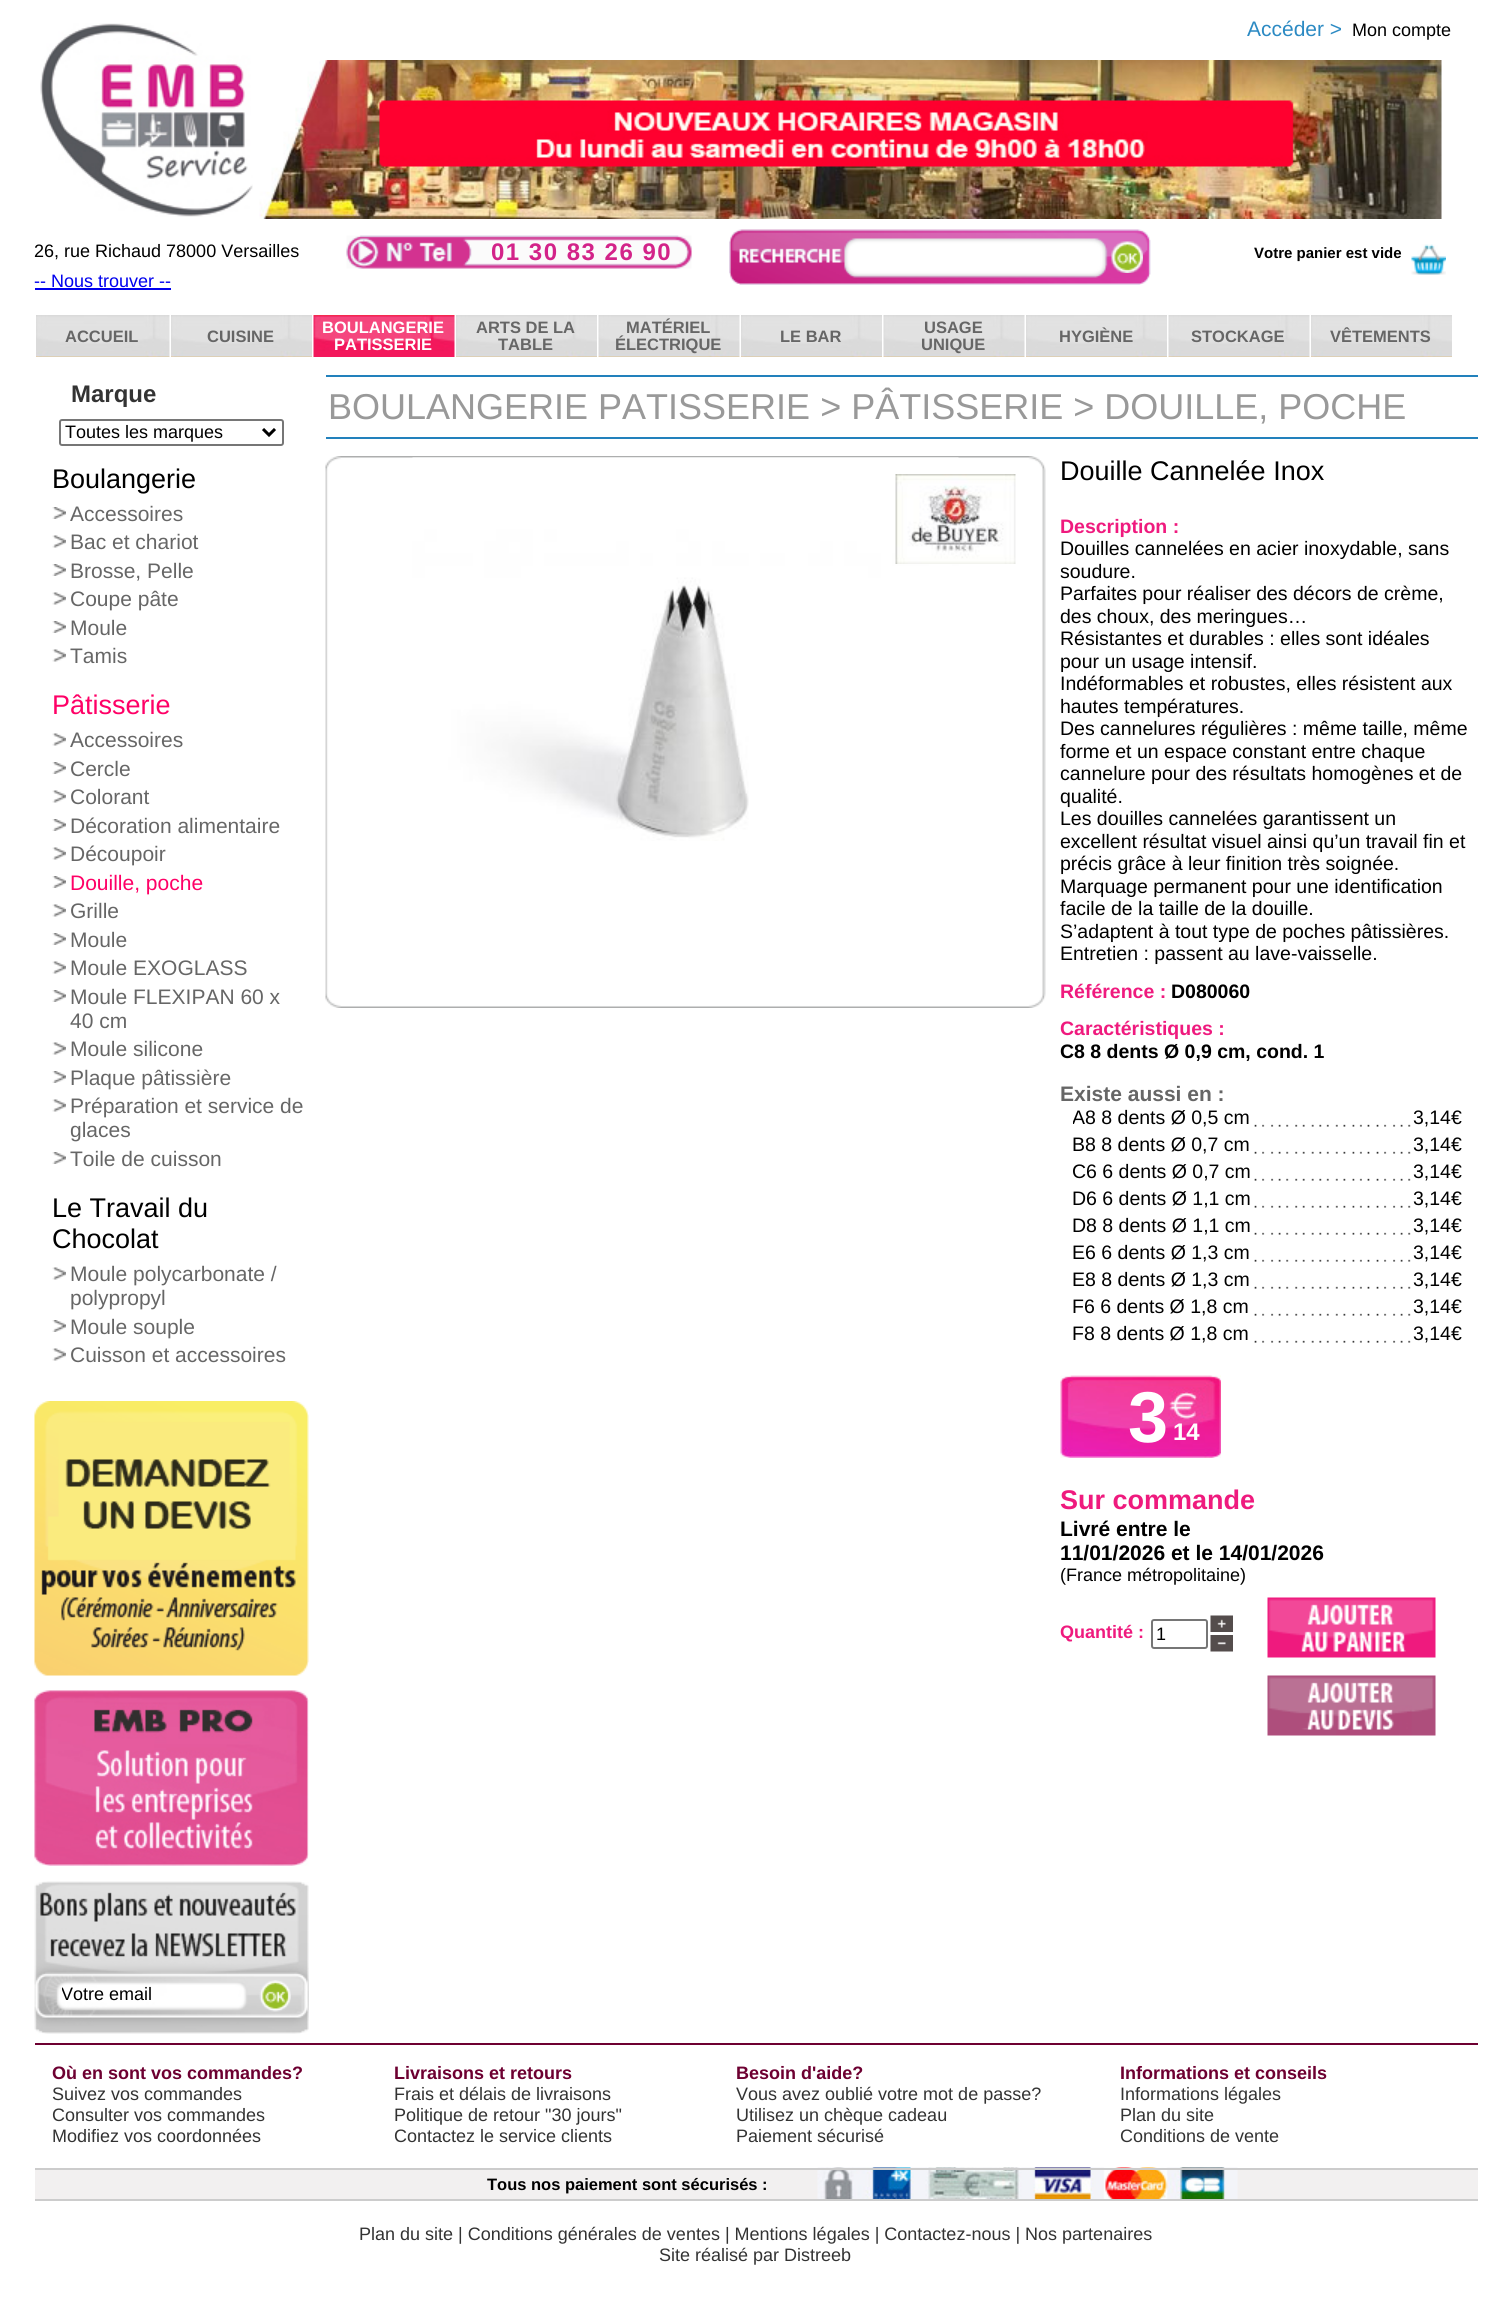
#include <cairo/cairo.h>
#include <math.h>
#include <stddef.h>

static cairo_t *cr;

static void use_color(int r, int g, int b) {
  cairo_set_source_rgb(cr, r / 255.0, g / 255.0, b / 255.0);
}

static void text(double x, double y, const char *s, const char *family, double size, int italic, int bold, int r, int g, int b) {
  cairo_select_font_face(cr, family, italic ? CAIRO_FONT_SLANT_ITALIC : CAIRO_FONT_SLANT_NORMAL,
    bold ? CAIRO_FONT_WEIGHT_BOLD : CAIRO_FONT_WEIGHT_NORMAL);
  cairo_set_font_size(cr, size);
  use_color(r, g, b);
  cairo_move_to(cr, x, y);
  cairo_show_text(cr, s);
}

static void spaced_text(double x, double y, const char *s, double letter, double word) {
  cairo_move_to(cr, x, y);
  while (*s) {
    char ch[5] = {0};
    int n = 0;
    do ch[n++] = *s++; while ((*s & 0xC0) == 0x80);
    cairo_show_text(cr, ch);
    cairo_rel_move_to(cr, letter + word * (*ch == ' '), 0);
  }
}

static void box(double x, double y, double w, double h, int r, int g, int b) {
  use_color(r, g, b);
  cairo_rectangle(cr, x, y, w, h);
  cairo_fill(cr);
}

static void round_rect(double x, double y, double w, double h, double r) {
  cairo_new_sub_path(cr);
  cairo_arc(cr, x + w - r, y + h - r, r, 0, M_PI / 2);
  cairo_arc(cr, x + r, y + h - r, r, M_PI / 2, M_PI);
  cairo_arc(cr, x + r, y + r, r, M_PI, 1.5 * M_PI);
  cairo_arc(cr, x + w - r, y + r, r, 1.5 * M_PI, 2 * M_PI);
  cairo_close_path(cr);
}

static void picture(const char *path, double x, double y, double w, double h) {
  cairo_surface_t *image = cairo_image_surface_create_from_png(path);
  cairo_save(cr);
  cairo_set_source_surface(cr, image, x, y);
  cairo_rectangle(cr, x, y, w, h);
  cairo_fill(cr);
  cairo_restore(cr);
  cairo_surface_destroy(image);
}

static void draw(void) {
  use_color(255, 255, 255);
  cairo_paint(cr);
  picture("img_01.png", 40, 23, 213, 194);
  picture("img_02.png", 259, 60, 1183, 159);
  picture("img_03.png", 346, 235, 346, 34);
  picture("img_04.png", 729, 229, 422, 56);
  picture("img_05.png", 1111, 241, 32, 32);
  picture("img_06.png", 1411, 244, 35, 31);
  box(35, 288, 136, 2, 0, 0, 238);
  picture("img_07.png", 36, 315, 134, 42);
  picture("img_08.png", 171, 315, 141, 42);
  picture("img_09.png", 313, 315, 142, 42);
  picture("img_10.png", 456, 315, 141, 42);
  picture("img_11.png", 598, 315, 142, 42);
  picture("img_12.png", 741, 315, 141, 42);
  picture("img_13.png", 883, 315, 142, 42);
  picture("img_10.png", 1026, 315, 141, 42);
  picture("img_14.png", 1168, 315, 142, 42);
  picture("img_10.png", 1311, 315, 141, 42);
  round_rect(60, 420, 223, 25, 2);
  use_color(118, 118, 118);
  cairo_stroke(cr);
  cairo_new_path(cr);
  cairo_move_to(cr, 263, 429);
  cairo_line_to(cr, 269, 435);
  cairo_line_to(cr, 275, 429);
  use_color(0, 0, 0);
  cairo_set_line_width(cr, 3);
  cairo_stroke(cr);
  picture("img_15.png", 52, 507, 14, 12);
  picture("img_16.png", 52, 535, 14, 13);
  picture("img_15.png", 52, 564, 14, 12);
  picture("img_16.png", 52, 592, 14, 13);
  picture("img_15.png", 52, 621, 14, 12);
  picture("img_16.png", 52, 649, 14, 13);
  picture("img_16.png", 52, 733, 14, 13);
  picture("img_15.png", 52, 762, 14, 12);
  picture("img_16.png", 52, 790, 14, 13);
  picture("img_15.png", 52, 819, 14, 12);
  picture("img_16.png", 52, 847, 14, 13);
  picture("img_15.png", 52, 876, 14, 12);
  picture("img_16.png", 52, 904, 14, 13);
  picture("img_15.png", 52, 933, 14, 12);
  picture("img_16.png", 52, 961, 14, 13);
  picture("img_15.png", 52, 990, 14, 12);
  picture("img_16.png", 52, 1042, 14, 13);
  picture("img_15.png", 52, 1071, 14, 12);
  picture("img_16.png", 52, 1099, 14, 13);
  picture("img_15.png", 52, 1152, 14, 12);
  picture("img_16.png", 52, 1267, 14, 13);
  picture("img_15.png", 52, 1320, 14, 12);
  picture("img_16.png", 52, 1348, 14, 13);
  picture("img_17.png", 34, 1401, 275, 275);
  picture("img_18.png", 34, 1690, 275, 176);
  picture("img_19.png", 34, 1881, 275, 153);
  picture("img_20.png", 259, 1980, 32, 32);
  box(326, 375, 1152, 2, 34, 129, 188);
  box(326, 437, 1152, 2, 34, 129, 188);
  picture("img_21.png", 325, 456, 721, 552);
  picture("img_22.png", 412, 457, 547, 384);
  picture("img_23.png", 895, 474, 121, 90);
  picture("img_24.png", 1254, 1124, 157, 3);
  picture("img_24.png", 1254, 1151, 157, 3);
  picture("img_24.png", 1254, 1178, 157, 3);
  picture("img_24.png", 1254, 1205, 157, 3);
  picture("img_24.png", 1254, 1232, 157, 3);
  picture("img_24.png", 1254, 1259, 157, 3);
  picture("img_24.png", 1254, 1286, 157, 3);
  picture("img_24.png", 1254, 1313, 157, 3);
  picture("img_24.png", 1254, 1340, 157, 3);
  picture("img_25.png", 1060, 1375, 161, 83);
  round_rect(1152, 1620, 55, 28, 2);
  use_color(118, 118, 118);
  cairo_set_line_width(cr, 2);
  cairo_stroke(cr);
  picture("img_26.png", 1210, 1615, 23, 17);
  picture("img_27.png", 1267, 1597, 169, 61);
  picture("img_28.png", 1210, 1635, 23, 17);
  picture("img_29.png", 1267, 1675, 169, 61);
  box(35, 2043, 1443, 2, 109, 0, 49);
  box(35, 2170, 1443, 29, 242, 240, 240);
  picture("img_30.png", 817, 2167, 421, 32);
  box(35, 2168, 1443, 2, 204, 204, 204);
  box(35, 2199, 1443, 2, 204, 204, 204);
  text(1247, 36, "Accéder >", "Liberation Sans", 21, 0, 0, 44, 138, 195);
  text(1352, 36, "Mon compte", "Liberation Sans", 18, 0, 0, 0, 0, 0);
  text(34, 257, "26, rue Richaud 78000 Versailles", "Liberation Sans", 18, 0, 0, 0, 0, 0);
  cairo_select_font_face(cr, "Liberation Sans", CAIRO_FONT_SLANT_NORMAL, CAIRO_FONT_WEIGHT_BOLD);
  cairo_set_font_size(cr, 24);
  use_color(211, 35, 137);
  spaced_text(491, 260, "01 30 83 26 90", 1.5, 0);
  text(1254, 258, "Votre panier est vide", "Liberation Sans", 15, 0, 1, 0, 0, 0);
  text(34, 287, "-- Nous trouver --", "Liberation Sans", 18, 0, 0, 0, 0, 238);
  text(65, 342, "ACCUEIL", "Liberation Sans", 16.5, 0, 1, 102, 102, 102);
  text(207, 342, "CUISINE", "Liberation Sans", 16.5, 0, 1, 102, 102, 102);
  text(322, 333, "BOULANGERIE", "Liberation Sans", 16.5, 0, 1, 255, 255, 255);
  text(334, 350, "PATISSERIE", "Liberation Sans", 16.5, 0, 1, 255, 255, 255);
  text(476, 333, "ARTS DE LA", "Liberation Sans", 16.5, 0, 1, 102, 102, 102);
  text(498, 350, "TABLE", "Liberation Sans", 16.5, 0, 1, 102, 102, 102);
  text(626, 333, "MATÉRIEL", "Liberation Sans", 16.5, 0, 1, 102, 102, 102);
  text(615, 350, "ÉLECTRIQUE", "Liberation Sans", 16.5, 0, 1, 102, 102, 102);
  text(780, 342, "LE BAR", "Liberation Sans", 16.5, 0, 1, 102, 102, 102);
  text(924, 333, "USAGE", "Liberation Sans", 16.5, 0, 1, 102, 102, 102);
  text(921, 350, "UNIQUE", "Liberation Sans", 16.5, 0, 1, 102, 102, 102);
  text(1059, 342, "HYGIÈNE", "Liberation Sans", 16.5, 0, 1, 102, 102, 102);
  text(1191, 342, "STOCKAGE", "Liberation Sans", 16.5, 0, 1, 102, 102, 102);
  text(1330, 342, "VÊTEMENTS", "Liberation Sans", 16.5, 0, 1, 102, 102, 102);
  text(71, 402, "Marque", "Liberation Sans", 24, 0, 1, 51, 51, 51);
  text(65, 438, "Toutes les marques", "Liberation Sans", 18, 0, 0, 0, 0, 0);
  text(52, 488, "Boulangerie", "Liberation Sans", 27, 0, 0, 0, 0, 0);
  text(70, 521, "Accessoires", "Liberation Sans", 21, 0, 0, 102, 102, 102);
  text(70, 549, "Bac et chariot", "Liberation Sans", 21, 0, 0, 102, 102, 102);
  text(70, 578, "Brosse, Pelle", "Liberation Sans", 21, 0, 0, 102, 102, 102);
  text(70, 606, "Coupe pâte", "Liberation Sans", 21, 0, 0, 102, 102, 102);
  text(70, 635, "Moule", "Liberation Sans", 21, 0, 0, 102, 102, 102);
  text(70, 663, "Tamis", "Liberation Sans", 21, 0, 0, 102, 102, 102);
  text(52, 714, "Pâtisserie", "Liberation Sans", 27, 0, 0, 255, 0, 102);
  text(70, 747, "Accessoires", "Liberation Sans", 21, 0, 0, 102, 102, 102);
  text(70, 776, "Cercle", "Liberation Sans", 21, 0, 0, 102, 102, 102);
  text(70, 804, "Colorant", "Liberation Sans", 21, 0, 0, 102, 102, 102);
  text(70, 833, "Décoration alimentaire", "Liberation Sans", 21, 0, 0, 102, 102, 102);
  text(70, 861, "Découpoir", "Liberation Sans", 21, 0, 0, 102, 102, 102);
  text(70, 890, "Douille, poche", "Liberation Sans", 21, 0, 0, 255, 0, 102);
  text(70, 918, "Grille", "Liberation Sans", 21, 0, 0, 102, 102, 102);
  text(70, 947, "Moule", "Liberation Sans", 21, 0, 0, 102, 102, 102);
  text(70, 975, "Moule EXOGLASS", "Liberation Sans", 21, 0, 0, 102, 102, 102);
  text(70, 1004, "Moule FLEXIPAN 60 x", "Liberation Sans", 21, 0, 0, 102, 102, 102);
  text(70, 1028, "40 cm", "Liberation Sans", 21, 0, 0, 102, 102, 102);
  text(70, 1056, "Moule silicone", "Liberation Sans", 21, 0, 0, 102, 102, 102);
  text(70, 1085, "Plaque pâtissière", "Liberation Sans", 21, 0, 0, 102, 102, 102);
  text(70, 1113, "Préparation et service de", "Liberation Sans", 21, 0, 0, 102, 102, 102);
  text(70, 1137, "glaces", "Liberation Sans", 21, 0, 0, 102, 102, 102);
  text(70, 1166, "Toile de cuisson", "Liberation Sans", 21, 0, 0, 102, 102, 102);
  text(52, 1217, "Le Travail du", "Liberation Sans", 27, 0, 0, 0, 0, 0);
  text(52, 1248, "Chocolat", "Liberation Sans", 27, 0, 0, 0, 0, 0);
  text(70, 1281, "Moule polycarbonate /", "Liberation Sans", 21, 0, 0, 102, 102, 102);
  text(70, 1305, "polypropyl", "Liberation Sans", 21, 0, 0, 102, 102, 102);
  text(70, 1334, "Moule souple", "Liberation Sans", 21, 0, 0, 102, 102, 102);
  text(70, 1362, "Cuisson et accessoires", "Liberation Sans", 21, 0, 0, 102, 102, 102);
  cairo_save(cr);
  cairo_rectangle(cr, 62, 1983, 181, 21);
  cairo_clip(cr);
  text(61, 2000, "Votre email", "Liberation Sans", 18, 0, 0, 0, 0, 0);
  cairo_restore(cr);
  text(328, 419, "BOULANGERIE PATISSERIE > PÂTISSERIE > DOUILLE, POCHE", "Liberation Sans", 36, 0, 0, 153, 153, 153);
  text(1060, 480, "Douille Cannelée Inox", "Liberation Sans", 27, 0, 0, 0, 0, 0);
  text(1060, 533, "Description :", "Liberation Sans", 19.5, 0, 1, 239, 26, 126);
  text(1060, 555, "Douilles cannelées en acier inoxydable, sans", "Liberation Sans", 19.5, 0, 0, 0, 0, 0);
  text(1060, 578, "soudure.", "Liberation Sans", 19.5, 0, 0, 0, 0, 0);
  text(1060, 600, "Parfaites pour réaliser des décors de crème,", "Liberation Sans", 19.5, 0, 0, 0, 0, 0);
  text(1060, 623, "des choux, des meringues…", "Liberation Sans", 19.5, 0, 0, 0, 0, 0);
  text(1060, 645, "Résistantes et durables : elles sont idéales", "Liberation Sans", 19.5, 0, 0, 0, 0, 0);
  text(1060, 668, "pour un usage intensif.", "Liberation Sans", 19.5, 0, 0, 0, 0, 0);
  text(1060, 690, "Indéformables et robustes, elles résistent aux", "Liberation Sans", 19.5, 0, 0, 0, 0, 0);
  text(1060, 713, "hautes températures.", "Liberation Sans", 19.5, 0, 0, 0, 0, 0);
  text(1060, 735, "Des cannelures régulières : même taille, même", "Liberation Sans", 19.5, 0, 0, 0, 0, 0);
  text(1060, 758, "forme et un espace constant entre chaque", "Liberation Sans", 19.5, 0, 0, 0, 0, 0);
  text(1060, 780, "cannelure pour des résultats homogènes et de", "Liberation Sans", 19.5, 0, 0, 0, 0, 0);
  text(1060, 803, "qualité.", "Liberation Sans", 19.5, 0, 0, 0, 0, 0);
  text(1060, 825, "Les douilles cannelées garantissent un", "Liberation Sans", 19.5, 0, 0, 0, 0, 0);
  text(1060, 848, "excellent résultat visuel ainsi qu’un travail fin et", "Liberation Sans", 19.5, 0, 0, 0, 0, 0);
  text(1060, 870, "précis grâce à leur finition très soignée.", "Liberation Sans", 19.5, 0, 0, 0, 0, 0);
  text(1060, 893, "Marquage permanent pour une identification", "Liberation Sans", 19.5, 0, 0, 0, 0, 0);
  text(1060, 915, "facile de la taille de la douille.", "Liberation Sans", 19.5, 0, 0, 0, 0, 0);
  text(1060, 938, "S’adaptent à tout type de poches pâtissières.", "Liberation Sans", 19.5, 0, 0, 0, 0, 0);
  text(1060, 960, "Entretien : passent au lave-vaisselle.", "Liberation Sans", 19.5, 0, 0, 0, 0, 0);
  text(1060, 998, "Référence :", "Liberation Sans", 19.5, 0, 1, 239, 26, 126);
  text(1171, 998, "D080060", "Liberation Sans", 19.5, 0, 1, 0, 0, 0);
  text(1060, 1035, "Caractéristiques :", "Liberation Sans", 19.5, 0, 1, 239, 26, 126);
  text(1060, 1058, "C8 8 dents Ø 0,9 cm, cond. 1", "Liberation Sans", 19.5, 0, 1, 0, 0, 0);
  text(1060, 1101, "Existe aussi en :", "Liberation Sans", 21, 0, 1, 102, 102, 102);
  cairo_save(cr);
  cairo_rectangle(cr, 1073, 1106, 315, 22);
  cairo_clip(cr);
  text(1072, 1124, "A8 8 dents Ø 0,5 cm", "Liberation Sans", 19.5, 0, 0, 0, 0, 0);
  cairo_restore(cr);
  text(1413, 1124, "3,14€", "Liberation Sans", 19.5, 0, 0, 0, 0, 0);
  text(1072, 1151, "B8 8 dents Ø 0,7 cm", "Liberation Sans", 19.5, 0, 0, 0, 0, 0);
  text(1413, 1151, "3,14€", "Liberation Sans", 19.5, 0, 0, 0, 0, 0);
  cairo_save(cr);
  cairo_rectangle(cr, 1073, 1160, 315, 22);
  cairo_clip(cr);
  text(1072, 1178, "C6 6 dents Ø 0,7 cm", "Liberation Sans", 19.5, 0, 0, 0, 0, 0);
  cairo_restore(cr);
  text(1413, 1178, "3,14€", "Liberation Sans", 19.5, 0, 0, 0, 0, 0);
  text(1072, 1205, "D6 6 dents Ø 1,1 cm", "Liberation Sans", 19.5, 0, 0, 0, 0, 0);
  text(1413, 1205, "3,14€", "Liberation Sans", 19.5, 0, 0, 0, 0, 0);
  text(1072, 1232, "D8 8 dents Ø 1,1 cm", "Liberation Sans", 19.5, 0, 0, 0, 0, 0);
  text(1413, 1232, "3,14€", "Liberation Sans", 19.5, 0, 0, 0, 0, 0);
  text(1072, 1259, "E6 6 dents Ø 1,3 cm", "Liberation Sans", 19.5, 0, 0, 0, 0, 0);
  text(1413, 1259, "3,14€", "Liberation Sans", 19.5, 0, 0, 0, 0, 0);
  text(1072, 1286, "E8 8 dents Ø 1,3 cm", "Liberation Sans", 19.5, 0, 0, 0, 0, 0);
  text(1413, 1286, "3,14€", "Liberation Sans", 19.5, 0, 0, 0, 0, 0);
  text(1072, 1313, "F6 6 dents Ø 1,8 cm", "Liberation Sans", 19.5, 0, 0, 0, 0, 0);
  text(1413, 1313, "3,14€", "Liberation Sans", 19.5, 0, 0, 0, 0, 0);
  text(1072, 1340, "F8 8 dents Ø 1,8 cm", "Liberation Sans", 19.5, 0, 0, 0, 0, 0);
  text(1413, 1340, "3,14€", "Liberation Sans", 19.5, 0, 0, 0, 0, 0);
  text(1128, 1442, "3", "Liberation Sans", 72, 0, 1, 255, 255, 255);
  text(1173, 1440, "14", "Liberation Sans", 24, 0, 1, 255, 255, 255);
  text(1060, 1509, "Sur commande", "Liberation Sans", 27, 0, 1, 239, 26, 126);
  text(1060, 1536, "Livré entre le", "Liberation Sans", 21, 0, 1, 0, 0, 0);
  text(1060, 1560, "11/01/2026 et le 14/01/2026", "Liberation Sans", 21, 0, 1, 0, 0, 0);
  text(1060, 1581, "(France métropolitaine)", "Liberation Sans", 18, 0, 0, 0, 0, 0);
  text(1060, 1638, "Quantité :", "Liberation Sans", 18, 0, 1, 239, 26, 126);
  text(1156, 1640, "1", "Liberation Sans", 18, 0, 0, 0, 0, 0);
  text(52, 2079, "Où en sont vos commandes?", "Liberation Sans", 18, 0, 1, 109, 0, 49);
  text(52, 2100, "Suivez vos commandes", "Liberation Sans", 18, 0, 0, 51, 51, 51);
  text(52, 2121, "Consulter vos commandes", "Liberation Sans", 18, 0, 0, 51, 51, 51);
  text(52, 2142, "Modifiez vos coordonnées", "Liberation Sans", 18, 0, 0, 51, 51, 51);
  text(394, 2079, "Livraisons et retours", "Liberation Sans", 18, 0, 1, 109, 0, 49);
  text(394, 2100, "Frais et délais de livraisons", "Liberation Sans", 18, 0, 0, 51, 51, 51);
  text(394, 2121, "Politique de retour \"30 jours\"", "Liberation Sans", 18, 0, 0, 51, 51, 51);
  text(394, 2142, "Contactez le service clients", "Liberation Sans", 18, 0, 0, 51, 51, 51);
  text(736, 2079, "Besoin d'aide?", "Liberation Sans", 18, 0, 1, 109, 0, 49);
  text(736, 2100, "Vous avez oublié votre mot de passe?", "Liberation Sans", 18, 0, 0, 51, 51, 51);
  text(736, 2121, "Utilisez un chèque cadeau", "Liberation Sans", 18, 0, 0, 51, 51, 51);
  text(736, 2142, "Paiement sécurisé", "Liberation Sans", 18, 0, 0, 51, 51, 51);
  text(1120, 2079, "Informations et conseils", "Liberation Sans", 18, 0, 1, 109, 0, 49);
  text(1120, 2100, "Informations légales", "Liberation Sans", 18, 0, 0, 51, 51, 51);
  text(1120, 2121, "Plan du site", "Liberation Sans", 18, 0, 0, 51, 51, 51);
  text(1120, 2142, "Conditions de vente", "Liberation Sans", 18, 0, 0, 51, 51, 51);
  text(487, 2190, "Tous nos paiement sont sécurisés :", "Liberation Sans", 16.5, 0, 1, 0, 0, 0);
  text(359, 2240, "Plan du site | Conditions générales de ventes | Mentions légales | Contactez-nous | Nos partenaires", "Liberation Sans", 18, 0, 0, 51, 51, 51);
  text(659, 2261, "Site réalisé par Distreeb", "Liberation Sans", 18, 0, 0, 51, 51, 51);
}

int main(void) {
  cairo_surface_t *surface = cairo_image_surface_create(CAIRO_FORMAT_RGB24, 1508, 2307);
  cr = cairo_create(surface);
  cairo_font_options_t *options = cairo_font_options_create();
  cairo_font_options_set_hint_metrics(options, CAIRO_HINT_METRICS_OFF);
  cairo_font_options_set_hint_style(options, CAIRO_HINT_STYLE_NONE);
  cairo_set_font_options(cr, options);
  cairo_set_miter_limit(cr, 4);
  draw();
  cairo_surface_write_to_png(surface, "out.png");
  cairo_font_options_destroy(options);
  cairo_destroy(cr);
  cairo_surface_destroy(surface);
  return 0;
}
